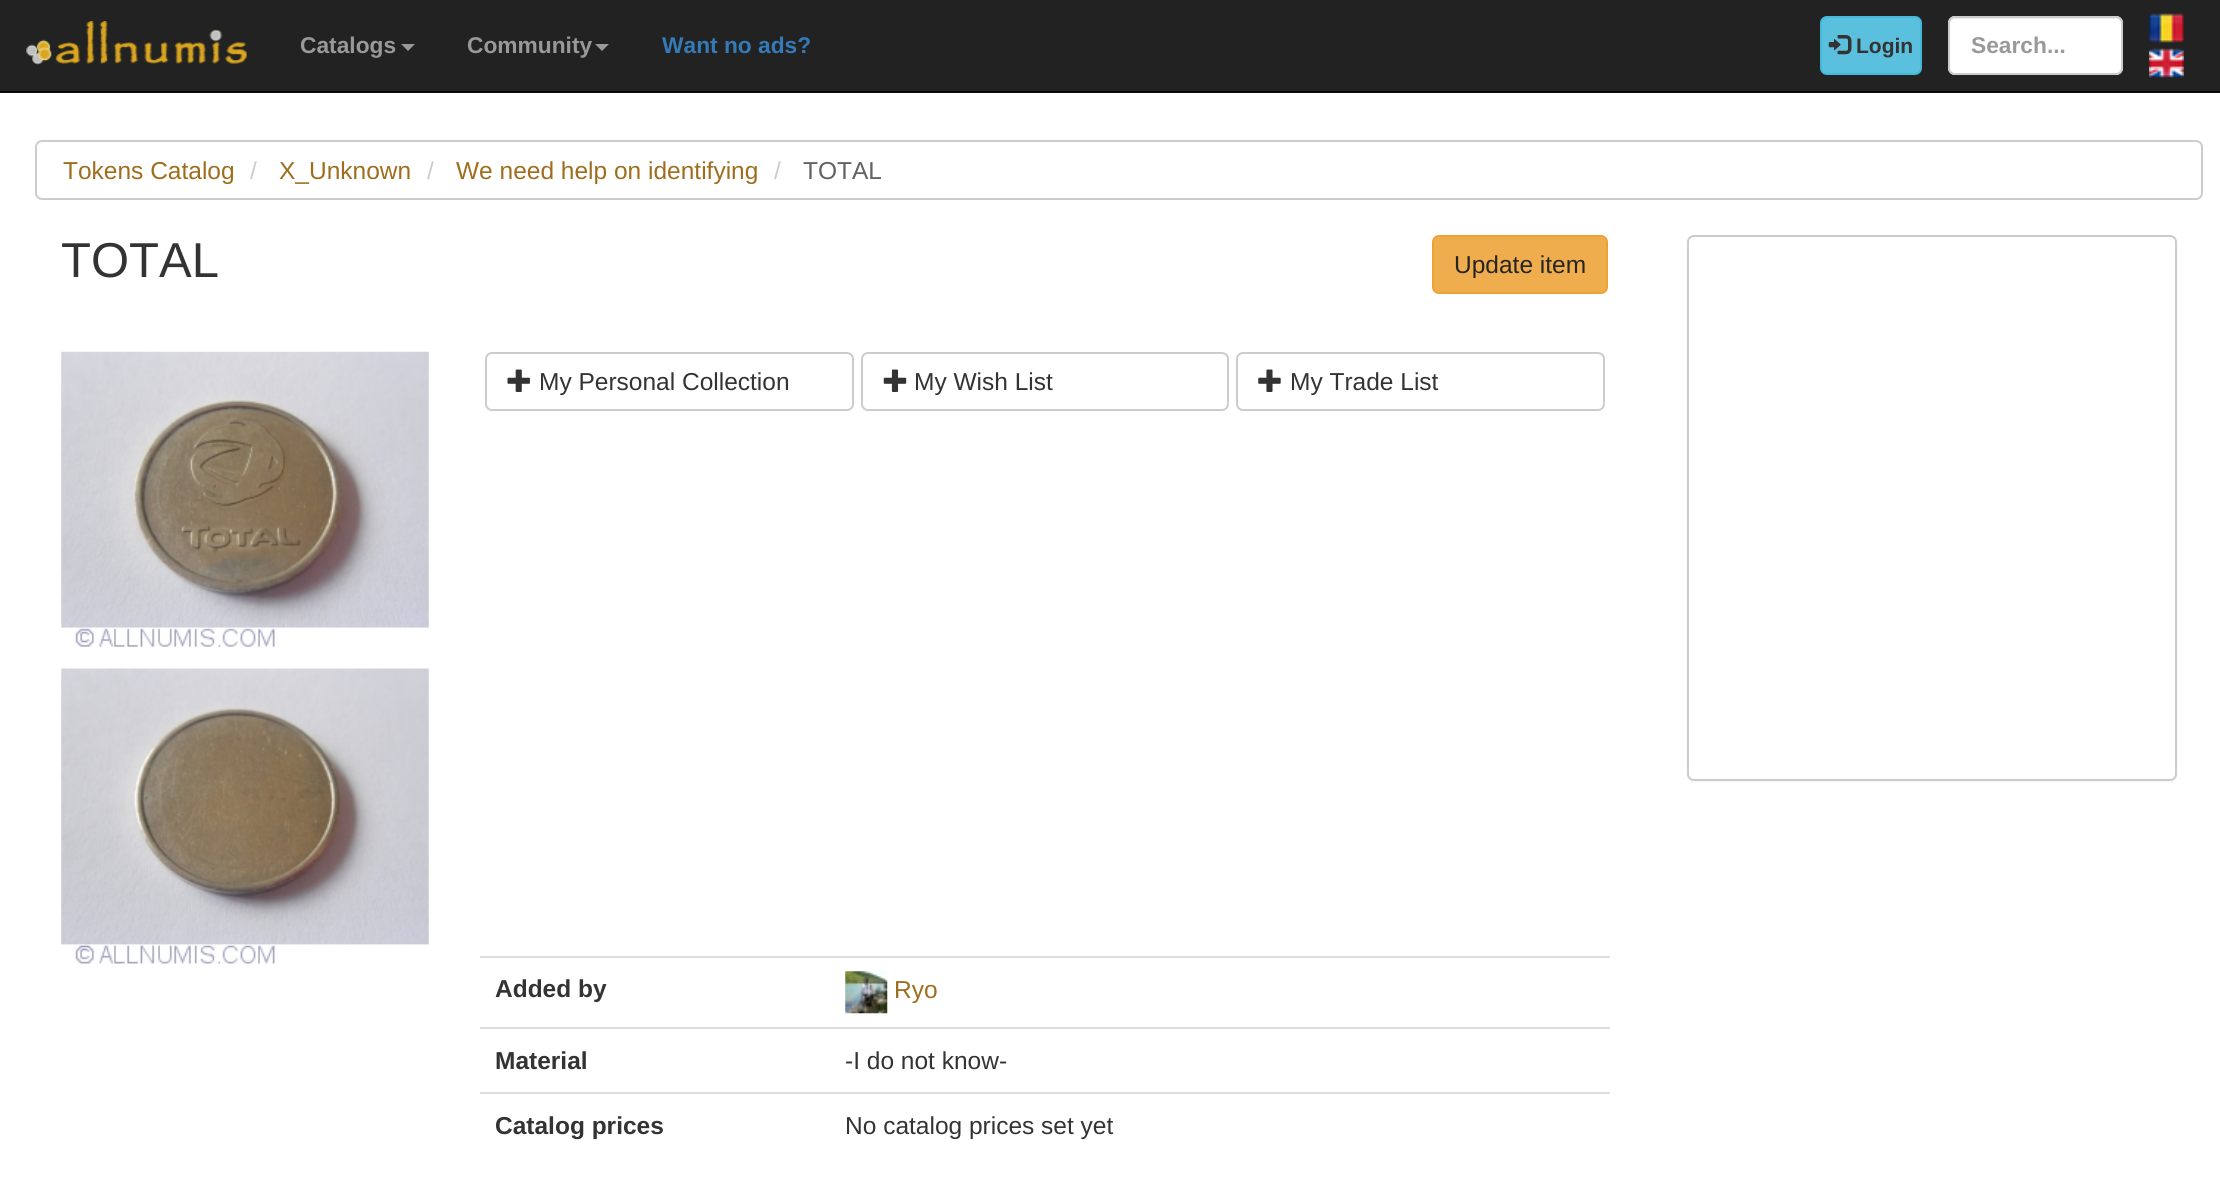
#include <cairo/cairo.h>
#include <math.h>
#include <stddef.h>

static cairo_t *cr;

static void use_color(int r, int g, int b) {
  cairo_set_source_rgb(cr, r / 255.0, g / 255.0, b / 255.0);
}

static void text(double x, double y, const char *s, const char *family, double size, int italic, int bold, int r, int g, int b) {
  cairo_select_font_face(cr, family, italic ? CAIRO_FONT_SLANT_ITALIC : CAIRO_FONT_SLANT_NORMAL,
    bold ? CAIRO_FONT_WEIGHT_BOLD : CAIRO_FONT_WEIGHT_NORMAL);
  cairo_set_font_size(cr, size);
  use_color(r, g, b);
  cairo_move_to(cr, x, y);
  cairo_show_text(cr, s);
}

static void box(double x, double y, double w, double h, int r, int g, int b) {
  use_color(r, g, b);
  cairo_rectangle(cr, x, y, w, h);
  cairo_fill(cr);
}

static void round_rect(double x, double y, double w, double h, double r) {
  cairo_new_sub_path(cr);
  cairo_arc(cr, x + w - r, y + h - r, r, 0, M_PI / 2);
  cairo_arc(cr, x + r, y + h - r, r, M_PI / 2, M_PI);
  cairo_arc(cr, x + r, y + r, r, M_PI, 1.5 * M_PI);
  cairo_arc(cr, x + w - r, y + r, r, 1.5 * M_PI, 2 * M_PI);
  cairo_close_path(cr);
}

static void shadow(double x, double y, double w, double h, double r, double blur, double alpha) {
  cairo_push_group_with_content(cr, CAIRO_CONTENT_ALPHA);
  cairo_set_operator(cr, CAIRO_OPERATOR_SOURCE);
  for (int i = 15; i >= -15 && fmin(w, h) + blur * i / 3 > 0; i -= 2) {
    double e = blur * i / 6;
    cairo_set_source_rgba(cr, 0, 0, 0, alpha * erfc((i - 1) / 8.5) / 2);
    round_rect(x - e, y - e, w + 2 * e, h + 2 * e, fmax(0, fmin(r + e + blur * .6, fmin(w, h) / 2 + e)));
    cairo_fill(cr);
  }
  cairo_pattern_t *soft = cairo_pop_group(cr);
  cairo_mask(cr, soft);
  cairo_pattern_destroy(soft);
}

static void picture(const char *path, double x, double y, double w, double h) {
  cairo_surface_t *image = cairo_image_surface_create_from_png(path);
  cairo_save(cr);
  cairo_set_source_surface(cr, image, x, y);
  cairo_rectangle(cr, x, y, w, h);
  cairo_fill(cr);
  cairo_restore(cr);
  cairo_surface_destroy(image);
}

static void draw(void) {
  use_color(255, 255, 255);
  cairo_paint(cr);
  box(0, 0, 2220, 91, 34, 34, 34);
  box(0, 91, 2220, 2, 8, 8, 8);
  picture("img_01.png", 26, 21, 221, 44);
  use_color(153, 153, 153);
  cairo_new_path(cr);
  cairo_move_to(cr, 401, 44);
  cairo_line_to(cr, 415, 44);
  cairo_line_to(cr, 408, 51);
  cairo_close_path(cr);
  cairo_fill(cr);
  cairo_new_path(cr);
  cairo_move_to(cr, 595, 44);
  cairo_line_to(cr, 609, 44);
  cairo_line_to(cr, 602, 51);
  cairo_close_path(cr);
  cairo_fill(cr);
  use_color(91, 192, 222);
  round_rect(1821, 17, 100, 57, 6);
  cairo_fill_preserve(cr);
  use_color(70, 184, 218);
  cairo_stroke(cr);
  picture("img_02.png", 1828, 35, 24, 20);
  use_color(255, 255, 255);
  round_rect(1948, 16, 175, 59, 7);
  cairo_fill(cr);
  use_color(236, 236, 236);
  cairo_new_path(cr);
  cairo_move_to(cr, 1955, 19);
  cairo_line_to(cr, 2116, 19);
  cairo_curve_to(cr, 2119, 19, 2121, 22, 2121, 24);
  cairo_line_to(cr, 2121, 23);
  cairo_curve_to(cr, 2121, 20, 2119, 18, 2116, 18);
  cairo_line_to(cr, 1955, 18);
  cairo_curve_to(cr, 1952, 18, 1950, 20, 1950, 23);
  cairo_line_to(cr, 1950, 24);
  cairo_curve_to(cr, 1950, 22, 1952, 19, 1955, 19);
  cairo_close_path(cr);
  cairo_fill(cr);
  round_rect(1949, 17, 173, 57, 6);
  use_color(204, 204, 204);
  cairo_stroke(cr);
  picture("img_03.png", 2149, 13, 35, 30);
  picture("img_04.png", 2149, 48, 35, 30);
  round_rect(36, 141, 2166, 58, 6);
  cairo_stroke(cr);
  use_color(240, 173, 78);
  round_rect(1433, 236, 174, 57, 6);
  cairo_fill_preserve(cr);
  use_color(238, 162, 54);
  cairo_stroke(cr);
  picture("img_05.png", 61, 351, 368, 296);
  picture("img_06.png", 61, 668, 368, 296);
  round_rect(486, 353, 367, 57, 6);
  use_color(204, 204, 204);
  cairo_stroke(cr);
  picture("img_07.png", 507, 369, 23, 23);
  round_rect(862, 353, 366, 57, 6);
  cairo_stroke(cr);
  picture("img_08.png", 883, 369, 24, 23);
  round_rect(1237, 353, 367, 57, 6);
  cairo_stroke(cr);
  picture("img_09.png", 1258, 369, 23, 23);
  box(480, 956, 1130, 2, 221, 221, 221);
  picture("img_10.png", 845, 971, 43, 43);
  box(480, 1027, 1130, 2, 221, 221, 221);
  box(480, 1092, 1130, 2, 221, 221, 221);
  use_color(0, 0, 0);
  shadow(1687, 236, 490, 546, 7, 1, 0.05);
  use_color(255, 255, 255);
  round_rect(1688, 236, 488, 544, 6);
  cairo_fill_preserve(cr);
  use_color(204, 204, 204);
  cairo_stroke(cr);
  text(300, 53, "Catalogs", "Liberation Sans", 22.75, 0, 1, 153, 153, 153);
  text(467, 53, "Community", "Liberation Sans", 22.75, 0, 1, 153, 153, 153);
  text(662, 53, "Want no ads?", "Liberation Sans", 22.75, 0, 1, 51, 122, 183);
  text(1856, 53, "Login", "Liberation Sans", 21, 0, 1, 51, 51, 51);
  text(1971, 53, "Search...", "Liberation Sans", 22.75, 0, 1, 153, 153, 153);
  text(63, 179, "Tokens Catalog", "Liberation Sans", 24.5, 0, 0, 158, 109, 29);
  text(250, 179, "/", "Liberation Sans", 24.5, 0, 0, 204, 204, 204);
  text(279, 179, "X_Unknown", "Liberation Sans", 24.5, 0, 0, 158, 109, 29);
  text(427, 179, "/", "Liberation Sans", 24.5, 0, 0, 204, 204, 204);
  text(456, 179, "We need help on identifying", "Liberation Sans", 24.5, 0, 0, 158, 109, 29);
  text(774, 179, "/", "Liberation Sans", 24.5, 0, 0, 204, 204, 204);
  text(803, 179, "TOTAL", "Liberation Sans", 24.5, 0, 0, 99, 97, 97);
  text(61, 277, "TOTAL", "Liberation Sans", 49, 0, 0, 51, 51, 51);
  text(1454, 273, "Update item", "Liberation Sans", 24.5, 0, 0, 37, 37, 37);
  text(539, 390, "My Personal Collection", "Liberation Sans", 24.5, 0, 0, 51, 51, 51);
  text(914, 390, "My Wish List", "Liberation Sans", 24.5, 0, 0, 51, 51, 51);
  text(1290, 390, "My Trade List", "Liberation Sans", 24.5, 0, 0, 51, 51, 51);
  text(495, 997, "Added by", "Liberation Sans", 24.5, 0, 1, 51, 51, 51);
  text(894, 998, "Ryo", "Liberation Sans", 24.5, 0, 0, 158, 109, 29);
  text(495, 1069, "Material", "Liberation Sans", 24.5, 0, 1, 51, 51, 51);
  text(845, 1069, "-I do not know-", "Liberation Sans", 24.5, 0, 0, 51, 51, 51);
  text(495, 1134, "Catalog prices", "Liberation Sans", 24.5, 0, 1, 51, 51, 51);
  text(845, 1134, "No catalog prices set yet", "Liberation Sans", 24.5, 0, 0, 51, 51, 51);
}

int main(void) {
  cairo_surface_t *surface = cairo_image_surface_create(CAIRO_FORMAT_RGB24, 2220, 1189);
  cr = cairo_create(surface);
  cairo_font_options_t *options = cairo_font_options_create();
  cairo_font_options_set_hint_metrics(options, CAIRO_HINT_METRICS_OFF);
  cairo_font_options_set_hint_style(options, CAIRO_HINT_STYLE_NONE);
  cairo_set_font_options(cr, options);
  cairo_set_miter_limit(cr, 4);
  draw();
  cairo_surface_write_to_png(surface, "out.png");
  cairo_font_options_destroy(options);
  cairo_destroy(cr);
  cairo_surface_destroy(surface);
  return 0;
}
